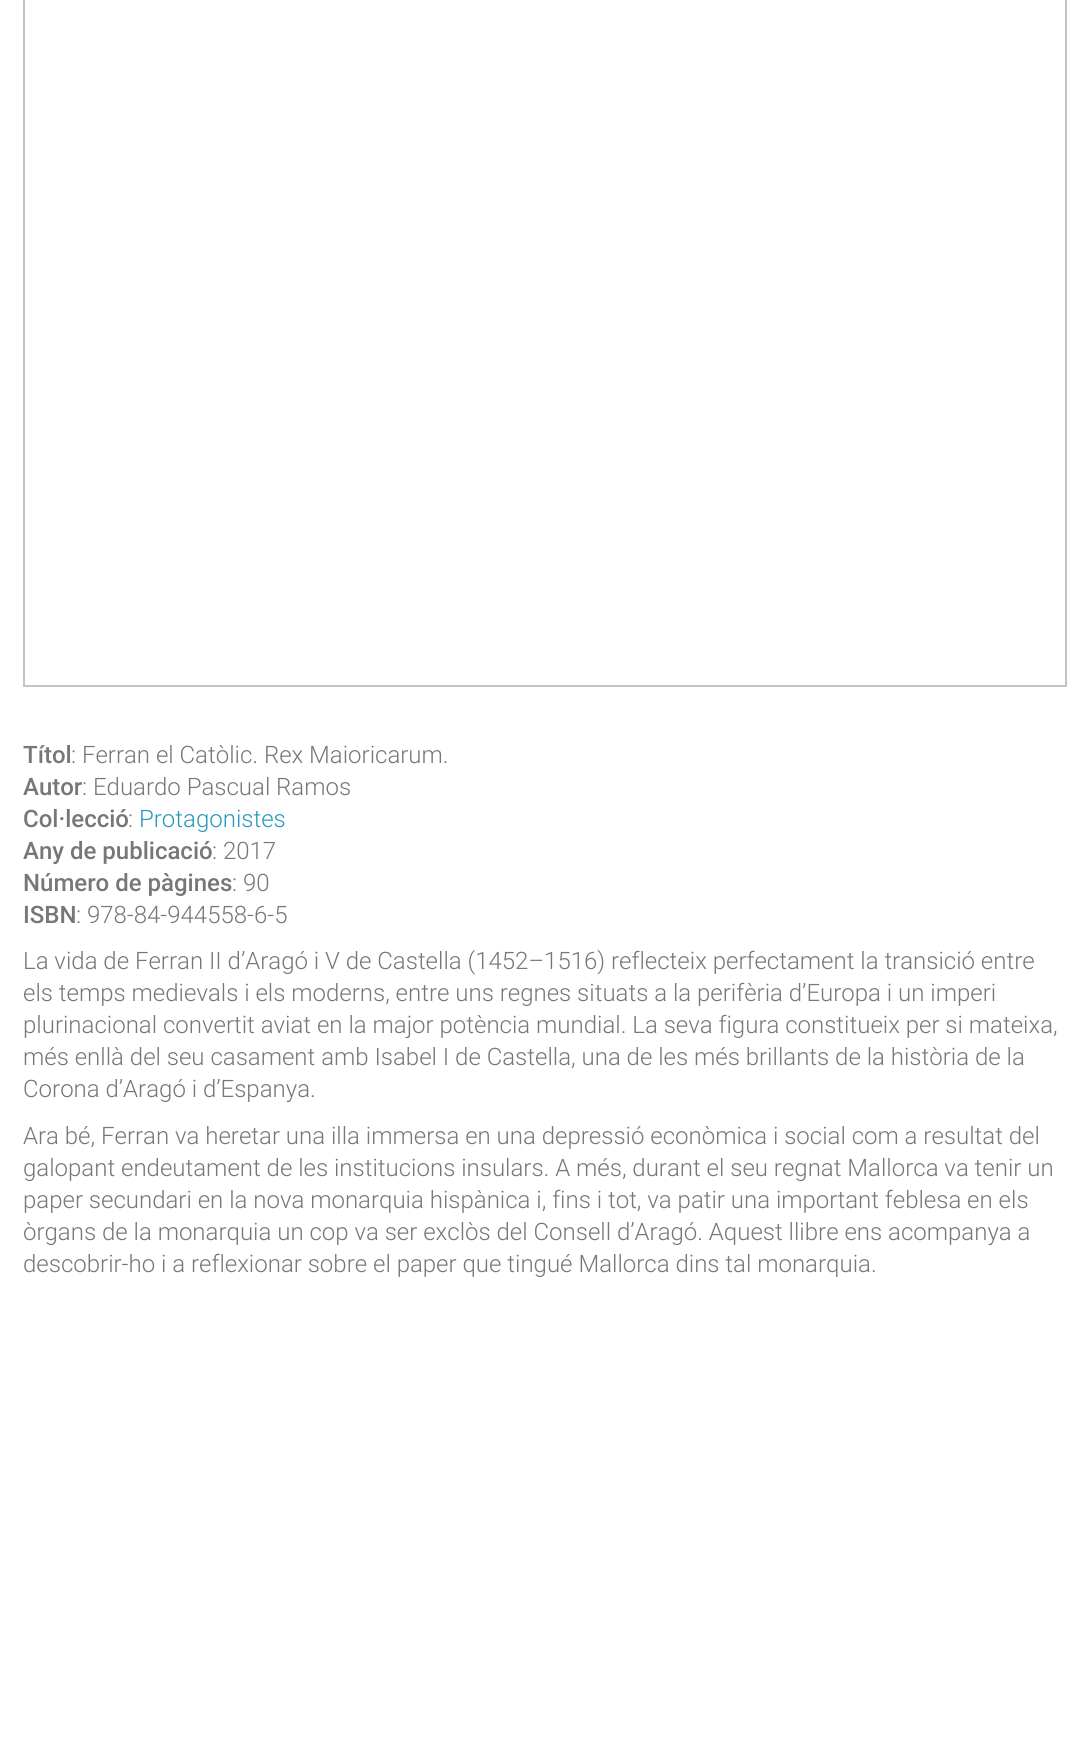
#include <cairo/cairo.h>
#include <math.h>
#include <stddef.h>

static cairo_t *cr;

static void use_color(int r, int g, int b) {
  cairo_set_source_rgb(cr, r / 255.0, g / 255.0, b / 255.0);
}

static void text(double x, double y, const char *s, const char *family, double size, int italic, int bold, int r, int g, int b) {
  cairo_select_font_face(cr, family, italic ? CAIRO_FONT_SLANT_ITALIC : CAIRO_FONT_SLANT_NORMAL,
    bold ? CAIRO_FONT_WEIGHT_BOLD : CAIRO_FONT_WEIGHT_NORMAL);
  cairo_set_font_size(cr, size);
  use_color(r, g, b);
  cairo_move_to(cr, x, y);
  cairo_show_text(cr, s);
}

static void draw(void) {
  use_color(255, 255, 255);
  cairo_paint(cr);
  cairo_rectangle(cr, 24, -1, 1042, 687);
  use_color(196, 196, 196);
  cairo_stroke(cr);
  text(23, 763, "Títol", "Roboto Medium", 24, 0, 0, 119, 119, 119);
  text(71, 763, ": Ferran el Catòlic. Rex Maioricarum.", "Roboto Light", 24, 0, 0, 119, 119, 119);
  text(23, 795, "Autor", "Roboto Medium", 24, 0, 0, 119, 119, 119);
  text(82, 795, ": Eduardo Pascual Ramos", "Roboto Light", 24, 0, 0, 119, 119, 119);
  text(23, 827, "Col·lecció", "Roboto Medium", 24, 0, 0, 119, 119, 119);
  text(128, 827, ":", "Roboto Light", 24, 0, 0, 119, 119, 119);
  text(139, 827, "Protagonistes", "Roboto Light", 24, 0, 0, 40, 152, 186);
  text(23, 859, "Any de publicació", "Roboto Medium", 24, 0, 0, 119, 119, 119);
  text(212, 859, ": 2017", "Roboto Light", 24, 0, 0, 119, 119, 119);
  text(23, 891, "Número de pàgines", "Roboto Medium", 24, 0, 0, 119, 119, 119);
  text(232, 891, ": 90", "Roboto Light", 24, 0, 0, 119, 119, 119);
  text(23, 923, "ISBN", "Roboto Medium", 24, 0, 0, 119, 119, 119);
  text(76, 923, ": 978-84-944558-6-5", "Roboto Light", 24, 0, 0, 119, 119, 119);
  text(23, 969, "La vida de Ferran II d’Aragó i V de Castella (1452–1516) reflecteix perfectament la transició entre", "Roboto Light", 24, 0, 0, 119, 119, 119);
  text(23, 1001, "els temps medievals i els moderns, entre uns regnes situats a la perifèria d’Europa i un imperi", "Roboto Light", 24, 0, 0, 119, 119, 119);
  text(23, 1033, "plurinacional convertit aviat en la major potència mundial. La seva figura constitueix per si mateixa,", "Roboto Light", 24, 0, 0, 119, 119, 119);
  text(23, 1065, "més enllà del seu casament amb Isabel I de Castella, una de les més brillants de la història de la", "Roboto Light", 24, 0, 0, 119, 119, 119);
  text(23, 1097, "Corona d’Aragó i d’Espanya.", "Roboto Light", 24, 0, 0, 119, 119, 119);
  text(23, 1144, "Ara bé, Ferran va heretar una illa immersa en una depressió econòmica i social com a resultat del", "Roboto Light", 24, 0, 0, 119, 119, 119);
  text(23, 1176, "galopant endeutament de les institucions insulars. A més, durant el seu regnat Mallorca va tenir un", "Roboto Light", 24, 0, 0, 119, 119, 119);
  text(23, 1208, "paper secundari en la nova monarquia hispànica i, fins i tot, va patir una important feblesa en els", "Roboto Light", 24, 0, 0, 119, 119, 119);
  text(23, 1240, "òrgans de la monarquia un cop va ser exclòs del Consell d’Aragó. Aquest llibre ens acompanya a", "Roboto Light", 24, 0, 0, 119, 119, 119);
  text(23, 1272, "descobrir-ho i a reflexionar sobre el paper que tingué Mallorca dins tal monarquia.", "Roboto Light", 24, 0, 0, 119, 119, 119);
}

int main(void) {
  cairo_surface_t *surface = cairo_image_surface_create(CAIRO_FORMAT_RGB24, 1088, 1741);
  cr = cairo_create(surface);
  cairo_font_options_t *options = cairo_font_options_create();
  cairo_font_options_set_hint_metrics(options, CAIRO_HINT_METRICS_OFF);
  cairo_font_options_set_hint_style(options, CAIRO_HINT_STYLE_NONE);
  cairo_set_font_options(cr, options);
  cairo_set_miter_limit(cr, 4);
  draw();
  cairo_surface_write_to_png(surface, "out.png");
  cairo_font_options_destroy(options);
  cairo_destroy(cr);
  cairo_surface_destroy(surface);
  return 0;
}
